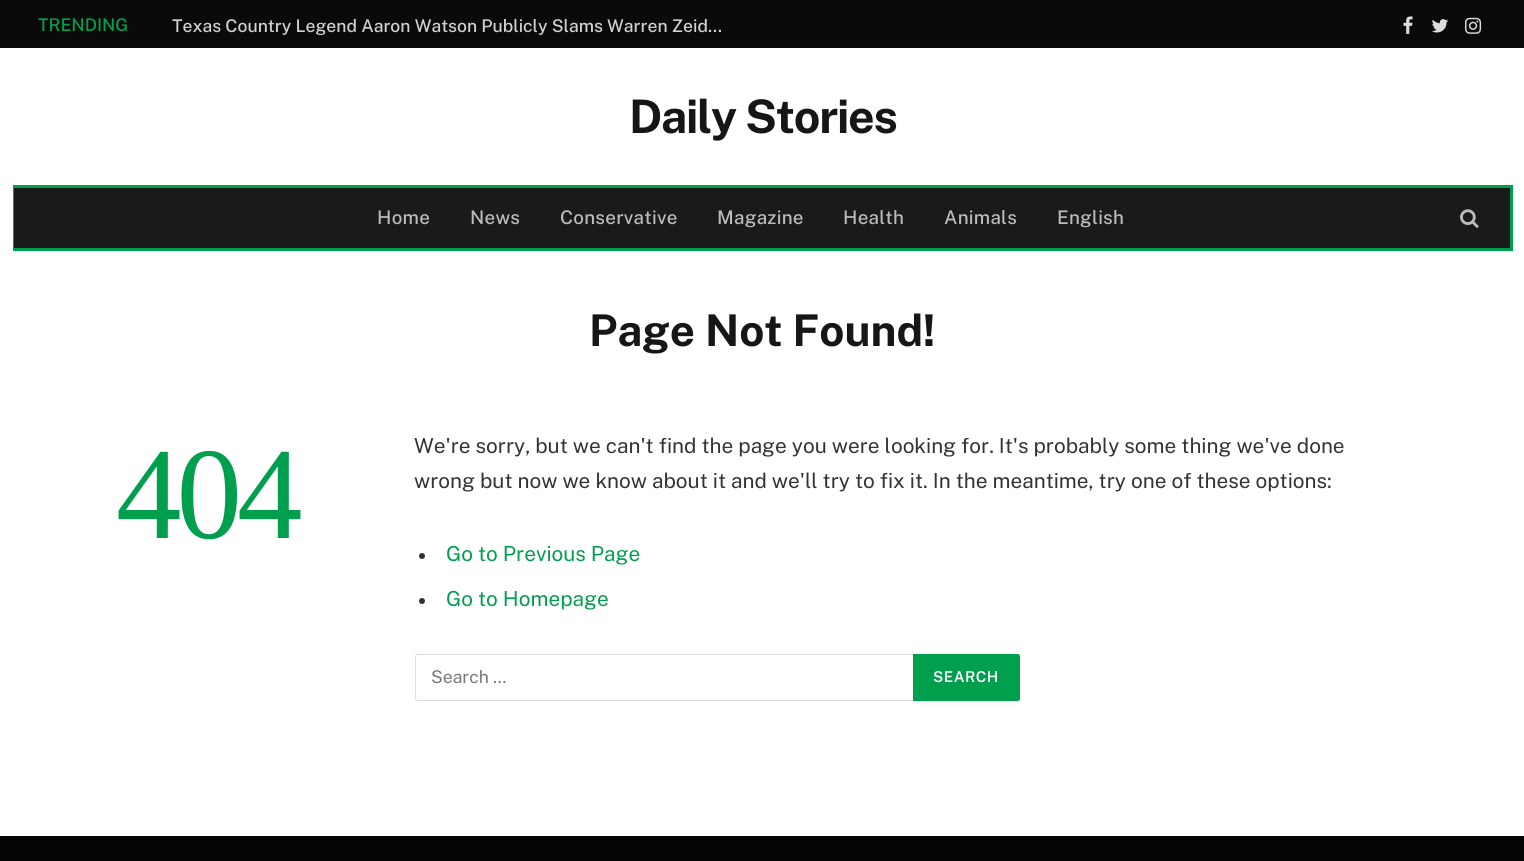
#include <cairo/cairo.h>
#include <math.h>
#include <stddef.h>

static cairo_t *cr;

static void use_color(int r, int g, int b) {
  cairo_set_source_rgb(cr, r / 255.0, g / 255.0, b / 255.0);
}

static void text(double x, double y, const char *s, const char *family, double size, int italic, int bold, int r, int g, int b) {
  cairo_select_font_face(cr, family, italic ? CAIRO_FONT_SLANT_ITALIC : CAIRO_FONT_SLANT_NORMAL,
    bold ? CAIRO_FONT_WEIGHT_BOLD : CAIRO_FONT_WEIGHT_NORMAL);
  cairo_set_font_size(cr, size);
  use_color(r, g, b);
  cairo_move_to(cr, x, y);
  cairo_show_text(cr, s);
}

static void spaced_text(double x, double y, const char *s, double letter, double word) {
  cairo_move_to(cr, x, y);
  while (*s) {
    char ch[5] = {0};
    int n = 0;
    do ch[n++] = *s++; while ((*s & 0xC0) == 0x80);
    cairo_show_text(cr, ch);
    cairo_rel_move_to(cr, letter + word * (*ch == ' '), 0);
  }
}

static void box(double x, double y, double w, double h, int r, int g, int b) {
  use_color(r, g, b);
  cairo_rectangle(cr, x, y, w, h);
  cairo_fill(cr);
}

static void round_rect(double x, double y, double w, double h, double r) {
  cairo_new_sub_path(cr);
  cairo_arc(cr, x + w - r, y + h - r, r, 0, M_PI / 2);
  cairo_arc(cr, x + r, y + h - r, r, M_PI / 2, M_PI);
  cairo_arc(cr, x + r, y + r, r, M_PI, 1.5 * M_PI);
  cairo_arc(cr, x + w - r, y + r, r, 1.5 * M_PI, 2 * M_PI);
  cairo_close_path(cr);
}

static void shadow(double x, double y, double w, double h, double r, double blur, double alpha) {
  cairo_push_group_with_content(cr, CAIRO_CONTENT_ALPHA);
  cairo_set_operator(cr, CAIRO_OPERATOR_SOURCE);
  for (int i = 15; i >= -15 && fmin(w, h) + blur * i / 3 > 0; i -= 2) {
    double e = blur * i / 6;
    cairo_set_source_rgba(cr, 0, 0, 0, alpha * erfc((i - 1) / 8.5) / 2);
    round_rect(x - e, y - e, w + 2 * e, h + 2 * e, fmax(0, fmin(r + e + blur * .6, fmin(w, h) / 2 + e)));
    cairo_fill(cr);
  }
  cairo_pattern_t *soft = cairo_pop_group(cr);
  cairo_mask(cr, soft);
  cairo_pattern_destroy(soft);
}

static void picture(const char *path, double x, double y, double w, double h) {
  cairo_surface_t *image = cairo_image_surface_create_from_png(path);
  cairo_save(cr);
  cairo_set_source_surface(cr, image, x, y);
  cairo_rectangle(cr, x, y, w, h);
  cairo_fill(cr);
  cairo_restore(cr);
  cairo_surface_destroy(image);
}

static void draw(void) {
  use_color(255, 255, 255);
  cairo_paint(cr);
  box(0, 0, 1524, 48, 10, 10, 10);
  picture("img_01.png", 1403, 16, 10, 18);
  picture("img_02.png", 1432, 19, 16, 14);
  picture("img_03.png", 1465, 17, 17, 17);
  box(13, 185, 1500, 3, 0, 159, 77);
  box(13, 248, 1500, 3, 0, 159, 77);
  box(14, 188, 1496, 60, 26, 26, 26);
  box(1510, 188, 3, 60, 0, 159, 77);
  box(13, 188, 1, 60, 0, 159, 77);
  picture("img_04.png", 1460, 209, 19, 19);
  use_color(51, 51, 51);
  cairo_arc(cr, 422, 556, 3, 0, 2 * M_PI);
  cairo_fill(cr);
  cairo_arc(cr, 422, 601, 3, 0, 2 * M_PI);
  cairo_fill(cr);
  round_rect(415.5, 654.5, 499, 46, 2);
  use_color(221, 221, 221);
  cairo_set_line_width(cr, 1);
  cairo_stroke(cr);
  use_color(0, 0, 0);
  shadow(918, 661, 97, 38, 0, 4.5, 0.16);
  use_color(0, 159, 77);
  cairo_new_path(cr);
  cairo_move_to(cr, 913, 654);
  cairo_line_to(cr, 1017.5, 654);
  cairo_curve_to(cr, 1019, 654, 1020, 655, 1020, 656.5);
  cairo_line_to(cr, 1020, 698.5);
  cairo_curve_to(cr, 1020, 700, 1019, 701, 1017.5, 701);
  cairo_line_to(cr, 913, 701);
  cairo_close_path(cr);
  cairo_fill(cr);
  box(0, 836, 1524, 25, 4, 4, 4);
  text(38, 31, "TRENDING", "Public Sans Medium", 17.5, 0, 0, 0, 159, 77);
  text(172, 32, "Texas Country Legend Aaron Watson Publicly Slams Warren Zeid…", "Public Sans Medium", 17.5, 0, 0, 209, 209, 209);
  cairo_select_font_face(cr, "Public Sans", CAIRO_FONT_SLANT_NORMAL, CAIRO_FONT_WEIGHT_BOLD);
  cairo_set_font_size(cr, 46.25);
  use_color(22, 22, 22);
  spaced_text(629, 133, "Daily Stories", -1.25, 0);
  cairo_select_font_face(cr, "Public Sans Medium", CAIRO_FONT_SLANT_NORMAL, CAIRO_FONT_WEIGHT_NORMAL);
  cairo_set_font_size(cr, 18.75);
  use_color(187, 187, 187);
  spaced_text(377, 224, "Home", 0.25, 0);
  spaced_text(470, 224, "News", 0.25, 0);
  spaced_text(560, 224, "Conservative", 0.25, 0);
  spaced_text(717, 224, "Magazine", 0.25, 0);
  spaced_text(843, 224, "Health", 0.25, 0);
  spaced_text(944, 224, "Animals", 0.25, 0);
  spaced_text(1057, 224, "English", 0.25, 0);
  text(589, 346, "Page Not Found!", "Public Sans", 43.75, 0, 1, 22, 22, 22);
  cairo_select_font_face(cr, "Liberation Serif", CAIRO_FONT_SLANT_NORMAL, CAIRO_FONT_WEIGHT_NORMAL);
  cairo_set_font_size(cr, 131);
  use_color(0, 159, 77);
  spaced_text(116, 538, "404", -5, 0);
  text(414, 453, "We're sorry, but we can't find the page you were looking for. It's probably some thing we've done", "Public Sans", 20.75, 0, 0, 51, 51, 51);
  text(414, 488, "wrong but now we know about it and we'll try to fix it. In the meantime, try one of these options:", "Public Sans", 20.75, 0, 0, 51, 51, 51);
  text(446, 561, "Go to Previous Page", "Public Sans", 20.75, 0, 0, 0, 159, 77);
  text(446, 606, "Go to Homepage", "Public Sans", 20.75, 0, 0, 0, 159, 77);
  text(431, 683, "Search …", "Public Sans", 17.5, 0, 0, 119, 119, 119);
  cairo_select_font_face(cr, "Public Sans SemiBold", CAIRO_FONT_SLANT_NORMAL, CAIRO_FONT_WEIGHT_NORMAL);
  cairo_set_font_size(cr, 15);
  use_color(255, 255, 255);
  spaced_text(933, 682, "SEARCH", 0.5, 0);
}

int main(void) {
  cairo_surface_t *surface = cairo_image_surface_create(CAIRO_FORMAT_RGB24, 1524, 861);
  cr = cairo_create(surface);
  cairo_font_options_t *options = cairo_font_options_create();
  cairo_font_options_set_hint_metrics(options, CAIRO_HINT_METRICS_OFF);
  cairo_font_options_set_hint_style(options, CAIRO_HINT_STYLE_NONE);
  cairo_set_font_options(cr, options);
  cairo_set_miter_limit(cr, 4);
  draw();
  cairo_surface_write_to_png(surface, "out.png");
  cairo_font_options_destroy(options);
  cairo_destroy(cr);
  cairo_surface_destroy(surface);
  return 0;
}
